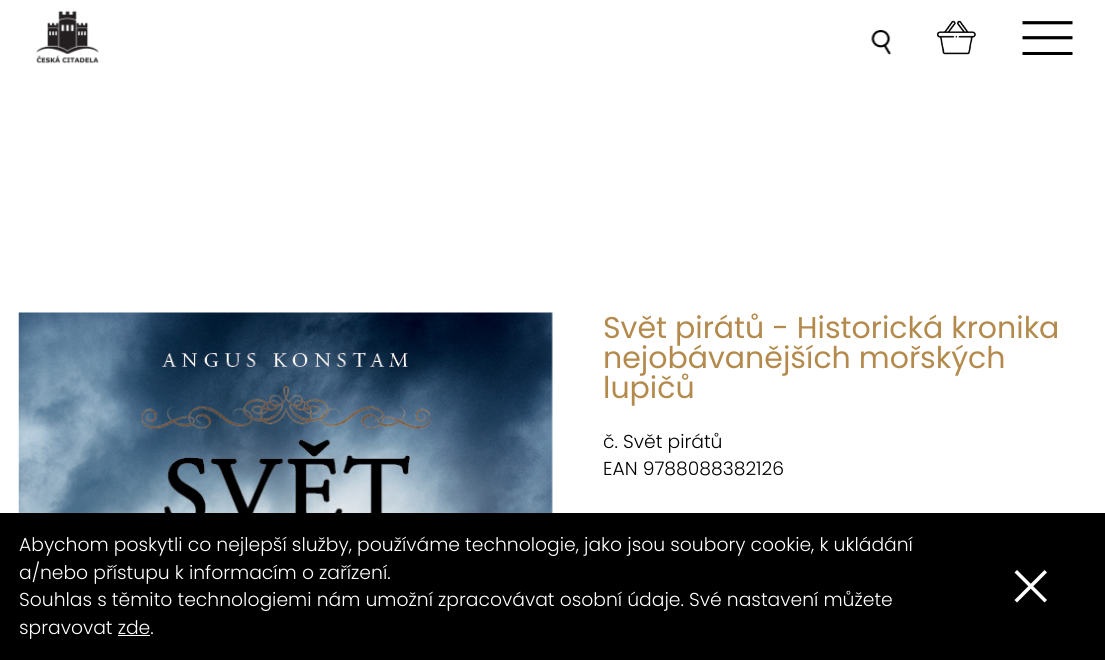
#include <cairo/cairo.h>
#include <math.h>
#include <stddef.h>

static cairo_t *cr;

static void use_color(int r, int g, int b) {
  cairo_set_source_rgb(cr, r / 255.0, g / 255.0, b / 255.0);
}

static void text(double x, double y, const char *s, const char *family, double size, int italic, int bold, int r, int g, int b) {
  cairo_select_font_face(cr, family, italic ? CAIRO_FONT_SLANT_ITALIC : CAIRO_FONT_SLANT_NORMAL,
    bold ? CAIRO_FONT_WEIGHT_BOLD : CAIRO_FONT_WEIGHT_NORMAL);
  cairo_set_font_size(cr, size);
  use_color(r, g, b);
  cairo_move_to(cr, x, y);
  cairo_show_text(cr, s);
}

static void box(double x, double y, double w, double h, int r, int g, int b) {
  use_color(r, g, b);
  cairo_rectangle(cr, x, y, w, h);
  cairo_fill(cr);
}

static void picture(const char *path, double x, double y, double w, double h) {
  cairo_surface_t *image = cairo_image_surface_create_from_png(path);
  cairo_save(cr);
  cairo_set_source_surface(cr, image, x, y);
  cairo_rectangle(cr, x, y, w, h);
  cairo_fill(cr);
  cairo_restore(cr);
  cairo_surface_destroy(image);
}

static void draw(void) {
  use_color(255, 255, 255);
  cairo_paint(cr);
  picture("img_01.png", 36, 10, 63, 54);
  picture("img_02.png", 871, 30, 20, 25);
  picture("img_03.png", 937, 20, 39, 35);
  picture("img_04.png", 1022, 21, 51, 34);
  picture("img_05.png", 18, 312, 535, 201);
  box(0, 513, 1105, 147, 0, 0, 0);
  box(118, 635, 32, 1, 255, 255, 255);
  cairo_new_path(cr);
  cairo_move_to(cr, 1044.5, 570);
  cairo_line_to(cr, 1047, 572.5);
  cairo_line_to(cr, 1017, 602.5);
  cairo_line_to(cr, 1014.5, 600);
  cairo_close_path(cr);
  cairo_fill(cr);
  cairo_new_path(cr);
  cairo_move_to(cr, 1014.5, 572.5);
  cairo_line_to(cr, 1017, 570);
  cairo_line_to(cr, 1047, 600);
  cairo_line_to(cr, 1044.5, 602.5);
  cairo_close_path(cr);
  cairo_fill(cr);
  text(603, 338, "Svět pirátů - Historická kronika", "Poppins", 30, 0, 0, 179, 138, 76);
  text(603, 368, "nejobávanějších mořských", "Poppins", 30, 0, 0, 179, 138, 76);
  text(603, 398, "lupičů", "Poppins", 30, 0, 0, 179, 138, 76);
  text(603, 448, "č. Svět pirátů", "Poppins Light", 18.75, 0, 0, 0, 0, 0);
  text(603, 475, "EAN 9788088382126", "Poppins Light", 18.75, 0, 0, 0, 0, 0);
  text(19, 551, "Abychom poskytli co nejlepší služby, používáme technologie, jako jsou soubory cookie, k ukládání", "Poppins Light", 18.75, 0, 0, 255, 255, 255);
  text(19, 579, "a/nebo přístupu k informacím o zařízení.", "Poppins Light", 18.75, 0, 0, 255, 255, 255);
  text(19, 606, "Souhlas s těmito technologiemi nám umožní zpracovávat osobní údaje. Své nastavení můžete", "Poppins Light", 18.75, 0, 0, 255, 255, 255);
  text(19, 634, "spravovat zde.", "Poppins Light", 18.75, 0, 0, 255, 255, 255);
}

int main(void) {
  cairo_surface_t *surface = cairo_image_surface_create(CAIRO_FORMAT_RGB24, 1105, 660);
  cr = cairo_create(surface);
  cairo_font_options_t *options = cairo_font_options_create();
  cairo_font_options_set_hint_metrics(options, CAIRO_HINT_METRICS_OFF);
  cairo_font_options_set_hint_style(options, CAIRO_HINT_STYLE_NONE);
  cairo_set_font_options(cr, options);
  cairo_set_miter_limit(cr, 4);
  draw();
  cairo_surface_write_to_png(surface, "out.png");
  cairo_font_options_destroy(options);
  cairo_destroy(cr);
  cairo_surface_destroy(surface);
  return 0;
}
